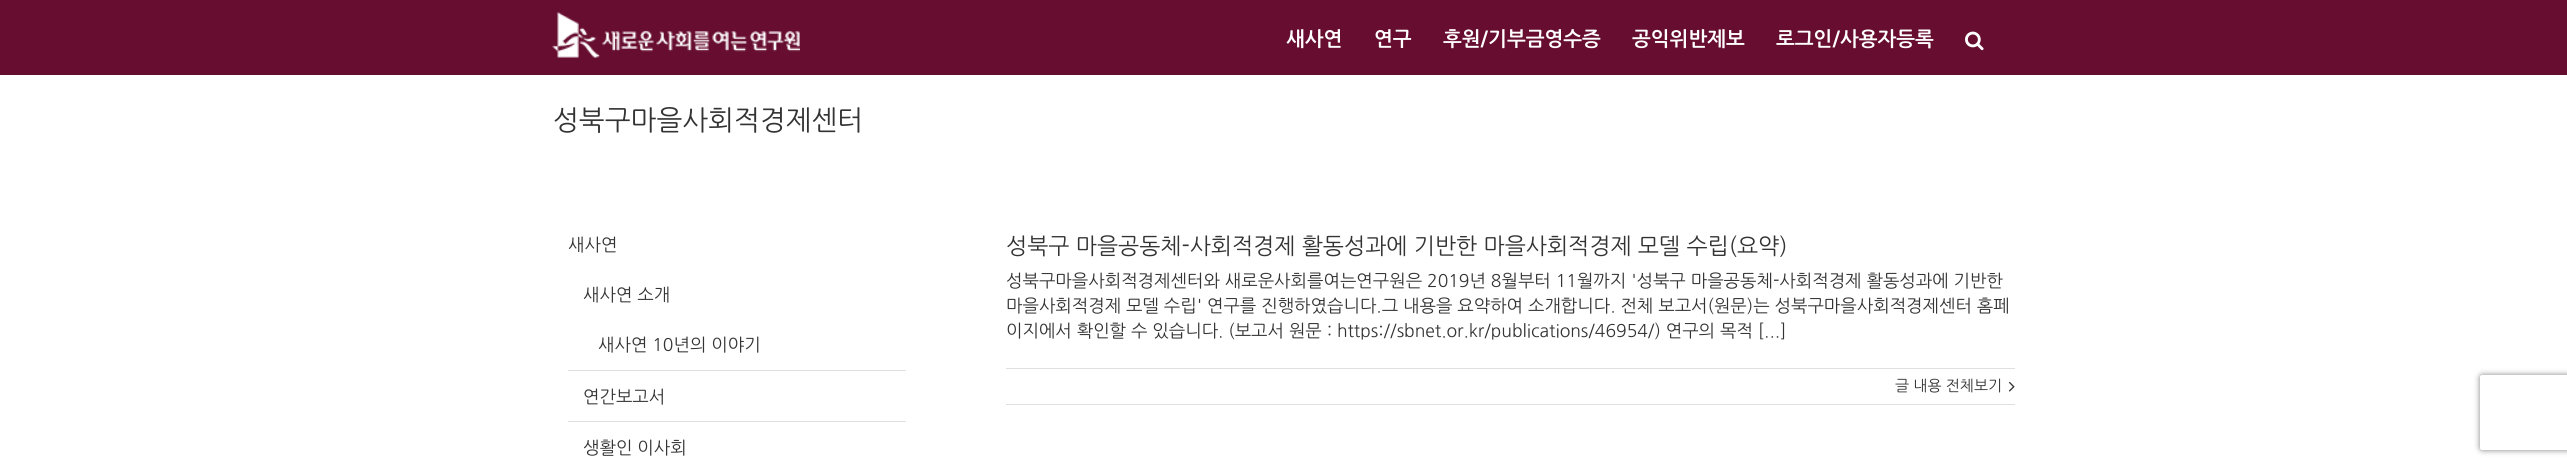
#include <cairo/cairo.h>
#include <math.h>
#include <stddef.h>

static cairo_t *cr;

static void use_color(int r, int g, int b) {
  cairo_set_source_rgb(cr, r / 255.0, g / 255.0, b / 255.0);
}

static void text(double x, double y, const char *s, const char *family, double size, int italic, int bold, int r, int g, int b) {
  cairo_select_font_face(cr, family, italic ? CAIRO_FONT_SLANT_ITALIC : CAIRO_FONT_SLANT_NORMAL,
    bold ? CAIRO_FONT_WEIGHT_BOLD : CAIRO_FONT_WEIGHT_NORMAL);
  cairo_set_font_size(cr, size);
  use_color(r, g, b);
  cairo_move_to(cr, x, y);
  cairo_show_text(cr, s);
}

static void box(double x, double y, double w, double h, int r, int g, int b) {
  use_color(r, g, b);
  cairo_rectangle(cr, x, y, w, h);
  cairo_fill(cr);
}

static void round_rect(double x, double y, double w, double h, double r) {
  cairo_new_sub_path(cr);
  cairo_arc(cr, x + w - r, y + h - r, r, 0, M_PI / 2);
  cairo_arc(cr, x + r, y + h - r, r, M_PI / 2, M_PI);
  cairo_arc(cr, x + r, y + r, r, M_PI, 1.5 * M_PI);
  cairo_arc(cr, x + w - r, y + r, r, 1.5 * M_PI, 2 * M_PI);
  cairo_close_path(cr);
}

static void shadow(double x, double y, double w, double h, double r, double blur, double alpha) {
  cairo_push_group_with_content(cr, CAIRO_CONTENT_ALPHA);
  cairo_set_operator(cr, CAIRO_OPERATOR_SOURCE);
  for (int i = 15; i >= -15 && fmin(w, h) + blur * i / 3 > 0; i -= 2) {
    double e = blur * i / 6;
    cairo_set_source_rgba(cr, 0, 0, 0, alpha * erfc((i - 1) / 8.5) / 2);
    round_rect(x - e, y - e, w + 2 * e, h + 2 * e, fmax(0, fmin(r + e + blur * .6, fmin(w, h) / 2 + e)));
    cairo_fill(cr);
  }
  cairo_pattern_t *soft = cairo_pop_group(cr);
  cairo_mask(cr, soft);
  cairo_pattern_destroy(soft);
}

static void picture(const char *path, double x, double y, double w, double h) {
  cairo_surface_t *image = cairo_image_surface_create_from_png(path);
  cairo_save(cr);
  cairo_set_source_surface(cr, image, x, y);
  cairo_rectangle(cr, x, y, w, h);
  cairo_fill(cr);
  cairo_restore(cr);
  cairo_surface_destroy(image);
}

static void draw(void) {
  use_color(255, 255, 255);
  cairo_paint(cr);
  box(0, 0, 2567, 75, 103, 14, 48);
  picture("img_01.png", 552, 12, 248, 46);
  picture("img_02.png", 1965, 31, 19, 20);
  box(568, 370, 338, 1, 224, 222, 222);
  box(568, 421, 338, 1, 224, 222, 222);
  box(1006, 368, 1009, 1, 224, 222, 222);
  box(1006, 404, 1009, 1, 224, 222, 222);
  picture("img_03.png", 2008, 381, 7, 11);
  cairo_save(cr);
  cairo_set_fill_rule(cr, CAIRO_FILL_RULE_EVEN_ODD);
  cairo_new_path(cr);
  cairo_move_to(cr, 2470, 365);
  cairo_line_to(cr, 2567, 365);
  cairo_line_to(cr, 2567, 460);
  cairo_line_to(cr, 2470, 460);
  cairo_close_path(cr);
  cairo_move_to(cr, 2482.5, 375);
  cairo_line_to(cr, 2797.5, 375);
  cairo_curve_to(cr, 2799, 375, 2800, 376, 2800, 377.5);
  cairo_line_to(cr, 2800, 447.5);
  cairo_curve_to(cr, 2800, 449, 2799, 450, 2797.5, 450);
  cairo_line_to(cr, 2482.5, 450);
  cairo_curve_to(cr, 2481, 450, 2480, 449, 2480, 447.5);
  cairo_line_to(cr, 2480, 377.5);
  cairo_curve_to(cr, 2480, 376, 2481, 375, 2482.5, 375);
  cairo_close_path(cr);
  cairo_clip(cr);
  use_color(128, 128, 128);
  shadow(2480, 375, 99, 75, 2.5, 3, 1);
  cairo_restore(cr);
  text(1286, 46, "새사연", "NanumGothic", 20, 0, 1, 255, 255, 255);
  text(1374, 46, "연구", "NanumGothic", 20, 0, 1, 255, 255, 255);
  text(1443, 46, "후원/기부금영수증", "NanumGothic", 20, 0, 1, 255, 255, 255);
  text(1632, 46, "공익위반제보", "NanumGothic", 20, 0, 1, 255, 255, 255);
  text(1776, 46, "로그인/사용자등록", "NanumGothic", 20, 0, 1, 255, 255, 255);
  text(553, 130, "성북구마을사회적경제센터", "NanumGothic", 27.5, 0, 0, 51, 51, 51);
  text(568, 251, "새사연", "NanumGothic", 17.5, 0, 0, 51, 51, 51);
  text(583, 301, "새사연 소개", "NanumGothic", 17.5, 0, 0, 51, 51, 51);
  text(598, 351, "새사연 10년의 이야기", "NanumGothic", 17.5, 0, 0, 51, 51, 51);
  text(583, 403, "연간보고서", "NanumGothic", 17.5, 0, 0, 51, 51, 51);
  text(583, 454, "생활인 이사회", "NanumGothic", 17.5, 0, 0, 51, 51, 51);
  text(1006, 254, "성북구 마을공동체-사회적경제 활동성과에 기반한 마을사회적경제 모델 수립(요약)", "NanumGothic", 22.5, 0, 0, 51, 51, 51);
  text(1006, 287, "성북구마을사회적경제센터와 새로운사회를여는연구원은 2019년 8월부터 11월까지 '성북구 마을공동체-사회적경제 활동성과에 기반한", "NanumGothic", 17.5, 0, 0, 51, 51, 51);
  text(1006, 312, "마을사회적경제 모델 수립' 연구를 진행하였습니다.그 내용을 요약하여 소개합니다. 전체 보고서(원문)는 성북구마을사회적경제센터 홈페", "NanumGothic", 17.5, 0, 0, 51, 51, 51);
  text(1006, 337, "이지에서 확인할 수 있습니다. (보고서 원문 : https://sbnet.or.kr/publications/46954/) 연구의 목적 [...]", "NanumGothic", 17.5, 0, 0, 51, 51, 51);
  text(1895, 391, "글 내용 전체보기", "NanumGothic", 15, 0, 0, 51, 51, 51);
}

int main(void) {
  cairo_surface_t *surface = cairo_image_surface_create(CAIRO_FORMAT_RGB24, 2567, 467);
  cr = cairo_create(surface);
  cairo_font_options_t *options = cairo_font_options_create();
  cairo_font_options_set_hint_metrics(options, CAIRO_HINT_METRICS_OFF);
  cairo_font_options_set_hint_style(options, CAIRO_HINT_STYLE_NONE);
  cairo_set_font_options(cr, options);
  cairo_set_miter_limit(cr, 4);
  draw();
  cairo_surface_write_to_png(surface, "out.png");
  cairo_font_options_destroy(options);
  cairo_destroy(cr);
  cairo_surface_destroy(surface);
  return 0;
}
